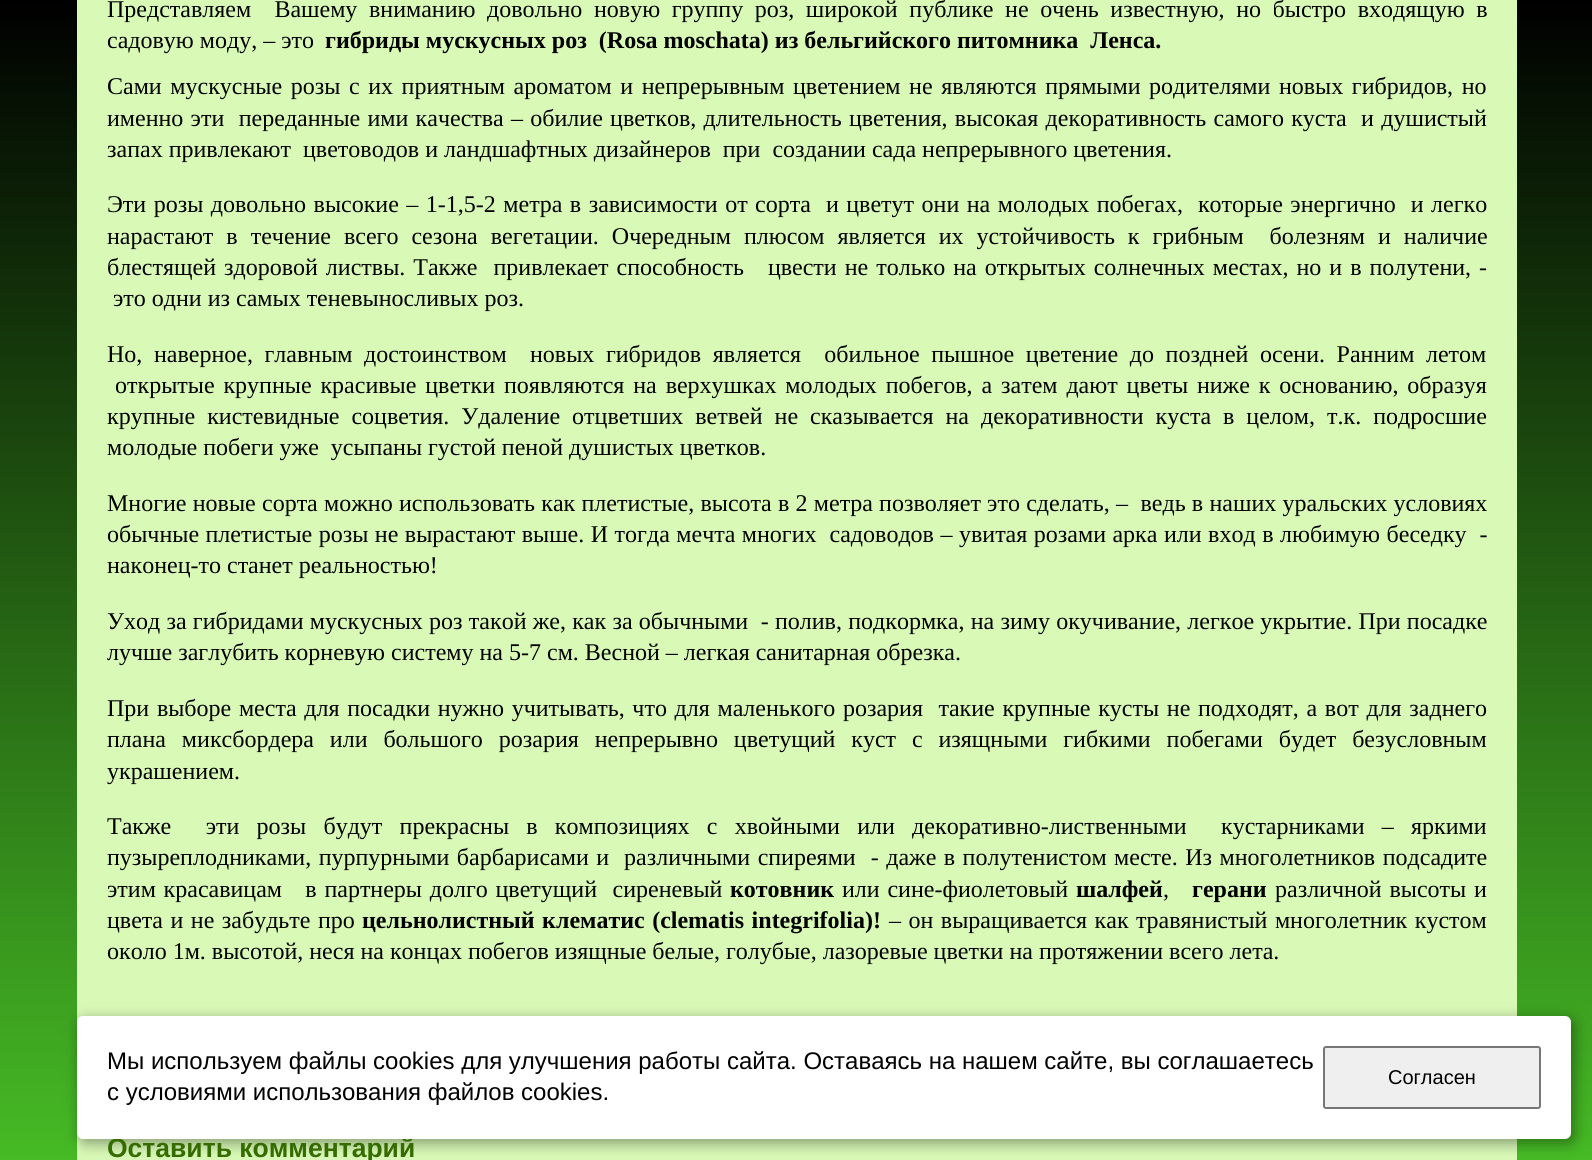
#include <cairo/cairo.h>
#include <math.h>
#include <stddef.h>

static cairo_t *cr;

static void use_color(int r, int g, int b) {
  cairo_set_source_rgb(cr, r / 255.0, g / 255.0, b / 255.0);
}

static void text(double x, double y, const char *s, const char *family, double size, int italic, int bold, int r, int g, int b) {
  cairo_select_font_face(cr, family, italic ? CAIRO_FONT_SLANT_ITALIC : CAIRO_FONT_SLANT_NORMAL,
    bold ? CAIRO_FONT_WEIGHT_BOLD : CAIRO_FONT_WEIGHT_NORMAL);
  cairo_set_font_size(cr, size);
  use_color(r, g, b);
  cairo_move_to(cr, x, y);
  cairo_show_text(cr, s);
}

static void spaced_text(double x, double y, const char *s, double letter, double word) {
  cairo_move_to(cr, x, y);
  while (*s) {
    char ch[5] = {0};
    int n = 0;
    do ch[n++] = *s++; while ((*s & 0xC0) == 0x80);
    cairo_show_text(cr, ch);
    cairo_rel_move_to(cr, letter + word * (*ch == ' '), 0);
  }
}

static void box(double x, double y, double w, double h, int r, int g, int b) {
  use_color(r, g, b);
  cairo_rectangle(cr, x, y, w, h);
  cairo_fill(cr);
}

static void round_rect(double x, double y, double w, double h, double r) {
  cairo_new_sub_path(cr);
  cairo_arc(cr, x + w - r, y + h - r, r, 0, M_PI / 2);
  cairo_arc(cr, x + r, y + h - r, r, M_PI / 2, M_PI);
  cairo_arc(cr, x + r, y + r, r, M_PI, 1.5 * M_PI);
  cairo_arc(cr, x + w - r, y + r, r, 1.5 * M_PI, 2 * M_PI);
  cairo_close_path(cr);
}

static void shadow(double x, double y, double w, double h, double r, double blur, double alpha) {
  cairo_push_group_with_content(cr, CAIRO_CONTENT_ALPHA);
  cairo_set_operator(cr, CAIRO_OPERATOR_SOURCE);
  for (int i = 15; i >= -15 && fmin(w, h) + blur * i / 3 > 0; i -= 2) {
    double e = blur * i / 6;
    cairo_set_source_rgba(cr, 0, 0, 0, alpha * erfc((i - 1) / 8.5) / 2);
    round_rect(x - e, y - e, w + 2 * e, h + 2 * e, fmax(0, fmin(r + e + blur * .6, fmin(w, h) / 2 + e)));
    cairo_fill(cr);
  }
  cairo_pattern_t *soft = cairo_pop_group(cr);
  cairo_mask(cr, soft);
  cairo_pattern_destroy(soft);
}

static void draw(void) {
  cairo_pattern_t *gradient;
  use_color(255, 255, 255);
  cairo_paint(cr);
  gradient = cairo_pattern_create_linear(797, 0, 797, 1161);
  cairo_pattern_add_color_stop_rgba(gradient, 0, 0, 0, 0, 1);
  cairo_pattern_add_color_stop_rgba(gradient, 1, 0.275, 0.733, 0.145, 1);
  cairo_set_source(cr, gradient);
  cairo_pattern_destroy(gradient);
  cairo_rectangle(cr, 0, 0, 1592, 1160);
  cairo_fill(cr);
  box(77, 0, 1440, 1160, 217, 250, 183);
  use_color(0, 0, 0);
  shadow(80, 1020, 1494, 123, 6, 7.5, 0.4);
  cairo_select_font_face(cr, "Liberation Serif", CAIRO_FONT_SLANT_NORMAL, CAIRO_FONT_WEIGHT_NORMAL);
  cairo_set_font_size(cr, 24);
  use_color(0, 0, 0);
  spaced_text(107, 17, "Представляем  Вашему вниманию довольно новую группу роз, широкой публике не очень известную, но быстро входящую в", 0, 5.6);
  text(107, 48, "садовую моду, – это", "Liberation Serif", 24, 0, 0, 0, 0, 0);
  text(325, 48, "гибриды мускусных роз  (Rosa moschata) из бельгийского питомника  Ленса.", "Liberation Serif", 24, 0, 1, 0, 0, 0);
  cairo_select_font_face(cr, "Liberation Serif", CAIRO_FONT_SLANT_NORMAL, CAIRO_FONT_WEIGHT_NORMAL);
  spaced_text(107, 94, "Сами мускусные розы с их приятным ароматом и непрерывным цветением не являются прямыми родителями новых гибридов, но", 0, 2.6);
  spaced_text(107, 126, "именно эти  переданные ими качества – обилие цветков, длительность цветения, высокая декоративность самого куста  и душистый", 0, 1.25);
  text(107, 157, "запах привлекают  цветоводов и ландшафтных дизайнеров  при  создании сада непрерывного цветения.", "Liberation Serif", 24, 0, 0, 0, 0, 0);
  spaced_text(107, 212, "Эти розы довольно высокие – 1-1,5-2 метра в зависимости от сорта  и цветут они на молодых побегах,  которые энергично  и легко", 0, 1.5);
  spaced_text(107, 244, "нарастают в течение всего сезона вегетации. Очередным плюсом является их устойчивость к грибным  болезням и наличие", 0, 7);
  spaced_text(107, 275, "блестящей здоровой листвы. Также  привлекает способность   цвести не только на открытых солнечных местах, но и в полутени, -", 0, 2);
  text(113, 306, "это одни из самых теневыносливых роз.", "Liberation Serif", 24, 0, 0, 0, 0, 0);
  spaced_text(107, 362, "Но, наверное, главным достоинством  новых гибридов является  обильное пышное цветение до поздней осени. Ранним летом", 0, 5.6);
  spaced_text(115, 393, "открытые крупные красивые цветки появляются на верхушках молодых побегов, а затем дают цветы ниже к основанию, образуя", 0, 2.9);
  spaced_text(107, 424, "крупные кистевидные соцветия. Удаление отцветших ветвей не сказывается на декоративности куста в целом, т.к. подросшие", 0, 6);
  text(107, 455, "молодые побеги уже  усыпаны густой пеной душистых цветков.", "Liberation Serif", 24, 0, 0, 0, 0, 0);
  spaced_text(107, 511, "Многие новые сорта можно использовать как плетистые, высота в 2 метра позволяет это сделать, –  ведь в наших уральских условиях", 0, 0.25);
  spaced_text(107, 542, "обычные плетистые розы не вырастают выше. И тогда мечта многих  садоводов – увитая розами арка или вход в любимую беседку  -", 0, 0.5);
  text(107, 573, "наконец-то станет реальностью!", "Liberation Serif", 24, 0, 0, 0, 0, 0);
  spaced_text(107, 629, "Уход за гибридами мускусных роз такой же, как за обычными  - полив, подкормка, на зиму окучивание, легкое укрытие. При посадке", 0, 0.25);
  text(107, 660, "лучше заглубить корневую систему на 5-7 см. Весной – легкая санитарная обрезка.", "Liberation Serif", 24, 0, 0, 0, 0, 0);
  spaced_text(107, 716, "При выборе места для посадки нужно учитывать, что для маленького розария  такие крупные кусты не подходят, а вот для заднего", 0, 1.7);
  spaced_text(107, 747, "плана миксбордера или большого розария непрерывно цветущий куст с изящными гибкими побегами будет безусловным", 0, 9.9);
  text(107, 779, "украшением.", "Liberation Serif", 24, 0, 0, 0, 0, 0);
  spaced_text(107, 834, "Также  эти розы будут прекрасны в композициях с хвойными или декоративно-лиственными  кустарниками – яркими", 0, 11.25);
  spaced_text(107, 865, "пузыреплодниками, пурпурными барбарисами и  различными спиреями  - даже в полутенистом месте. Из многолетников подсадите", 0, 1.5);
  spaced_text(107, 897, "этим красавицам   в партнеры долго цветущий  сиреневый", 0, 1.75);
  text(730, 897, "котовник", "Liberation Serif", 24, 0, 1, 0, 0, 0);
  cairo_select_font_face(cr, "Liberation Serif", CAIRO_FONT_SLANT_NORMAL, CAIRO_FONT_WEIGHT_NORMAL);
  spaced_text(842, 897, "или сине-фиолетовый", 0, 1.75);
  text(1076, 897, "шалфей", "Liberation Serif", 24, 0, 1, 0, 0, 0);
  text(1163, 897, ",", "Liberation Serif", 24, 0, 0, 0, 0, 0);
  text(1192, 897, "герани", "Liberation Serif", 24, 0, 1, 0, 0, 0);
  cairo_select_font_face(cr, "Liberation Serif", CAIRO_FONT_SLANT_NORMAL, CAIRO_FONT_WEIGHT_NORMAL);
  spaced_text(1275, 897, "различной высоты и", 0, 1.75);
  spaced_text(107, 928, "цвета и не забудьте про", 0, 1.5);
  cairo_select_font_face(cr, "Liberation Serif", CAIRO_FONT_SLANT_NORMAL, CAIRO_FONT_WEIGHT_BOLD);
  spaced_text(362, 928, "цельнолистный клематис (clematis integrifolia)!", 0, 1.5);
  cairo_select_font_face(cr, "Liberation Serif", CAIRO_FONT_SLANT_NORMAL, CAIRO_FONT_WEIGHT_NORMAL);
  spaced_text(889, 928, "– он выращивается как травянистый многолетник кустом", 0, 1.5);
  text(107, 959, "около 1м. высотой, неся на концах побегов изящные белые, голубые, лазоревые цветки на протяжении всего лета.", "Liberation Serif", 24, 0, 0, 0, 0, 0);
  text(107, 1157, "Оставить комментарий", "Liberation Sans", 26.5, 0, 1, 53, 108, 0);
  use_color(255, 255, 255);
  round_rect(77, 1016, 1494, 123, 6);
  cairo_fill(cr);
  text(107, 1069, "Мы используем файлы cookies для улучшения работы сайта. Оставаясь на нашем сайте, вы соглашаетесь", "Liberation Sans", 24, 0, 0, 0, 0, 0);
  text(107, 1100, "с условиями использования файлов cookies.", "Liberation Sans", 24, 0, 0, 0, 0, 0);
  use_color(239, 239, 239);
  round_rect(1324, 1047, 216, 61, 2);
  cairo_fill_preserve(cr);
  use_color(118, 118, 118);
  cairo_stroke(cr);
  text(1388, 1084, "Согласен", "Liberation Sans", 20, 0, 0, 0, 0, 0);
}

int main(void) {
  cairo_surface_t *surface = cairo_image_surface_create(CAIRO_FORMAT_RGB24, 1592, 1160);
  cr = cairo_create(surface);
  cairo_font_options_t *options = cairo_font_options_create();
  cairo_font_options_set_hint_metrics(options, CAIRO_HINT_METRICS_OFF);
  cairo_font_options_set_hint_style(options, CAIRO_HINT_STYLE_NONE);
  cairo_set_font_options(cr, options);
  cairo_set_miter_limit(cr, 4);
  draw();
  cairo_surface_write_to_png(surface, "out.png");
  cairo_font_options_destroy(options);
  cairo_destroy(cr);
  cairo_surface_destroy(surface);
  return 0;
}
